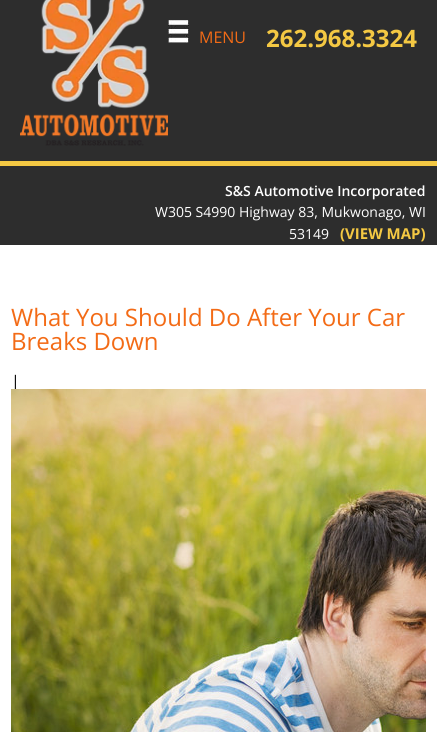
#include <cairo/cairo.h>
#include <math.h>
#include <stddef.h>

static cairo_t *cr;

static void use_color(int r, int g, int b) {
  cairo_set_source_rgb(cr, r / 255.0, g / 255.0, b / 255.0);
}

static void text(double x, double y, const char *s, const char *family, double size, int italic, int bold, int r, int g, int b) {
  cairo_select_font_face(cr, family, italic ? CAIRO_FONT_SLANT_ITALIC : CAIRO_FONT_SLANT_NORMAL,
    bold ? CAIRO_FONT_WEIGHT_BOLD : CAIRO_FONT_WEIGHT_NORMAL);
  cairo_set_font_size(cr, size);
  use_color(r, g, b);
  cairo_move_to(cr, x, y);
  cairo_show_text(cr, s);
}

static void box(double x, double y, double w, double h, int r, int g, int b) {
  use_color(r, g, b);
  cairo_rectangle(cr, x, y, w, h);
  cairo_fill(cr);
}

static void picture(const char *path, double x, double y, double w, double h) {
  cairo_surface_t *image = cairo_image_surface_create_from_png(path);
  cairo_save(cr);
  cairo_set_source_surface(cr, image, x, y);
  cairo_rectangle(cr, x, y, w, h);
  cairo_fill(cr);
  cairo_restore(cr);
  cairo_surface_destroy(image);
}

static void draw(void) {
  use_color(255, 255, 255);
  cairo_paint(cr);
  box(0, 0, 437, 161, 45, 45, 45);
  box(0, 161, 437, 5, 244, 200, 67);
  picture("img_01.png", 20, 0, 148, 146);
  picture("img_02.png", 168, 20, 21, 23);
  box(0, 166, 437, 79, 45, 45, 45);
  text(199, 43, "MENU", "Open Sans", 16, 0, 0, 243, 107, 22);
  text(266, 47, "262.968.3324", "Open Sans", 24, 0, 1, 244, 200, 67);
  text(225, 196, "S&S Automotive Incorporated", "Open Sans SemiBold", 14, 0, 0, 255, 255, 255);
  text(155, 217, "W305 S4990 Highway 83, Mukwonago, WI", "Open Sans", 14, 0, 0, 255, 255, 255);
  text(289, 239, "53149", "Open Sans", 14, 0, 0, 255, 255, 255);
  text(340, 239, "(VIEW MAP)", "Open Sans", 15, 0, 1, 244, 200, 67);
  text(11, 326, "What You Should Do After Your Car", "Open Sans", 24, 0, 0, 243, 107, 22);
  text(11, 350, "Breaks Down", "Open Sans", 24, 0, 0, 243, 107, 22);
  text(11, 387, "|", "Open Sans", 16, 0, 0, 0, 0, 0);
  picture("img_03.png", 11, 389, 415, 343);
}

int main(void) {
  cairo_surface_t *surface = cairo_image_surface_create(CAIRO_FORMAT_RGB24, 437, 732);
  cr = cairo_create(surface);
  cairo_font_options_t *options = cairo_font_options_create();
  cairo_font_options_set_hint_metrics(options, CAIRO_HINT_METRICS_OFF);
  cairo_font_options_set_hint_style(options, CAIRO_HINT_STYLE_NONE);
  cairo_set_font_options(cr, options);
  cairo_set_miter_limit(cr, 4);
  draw();
  cairo_surface_write_to_png(surface, "out.png");
  cairo_font_options_destroy(options);
  cairo_destroy(cr);
  cairo_surface_destroy(surface);
  return 0;
}
